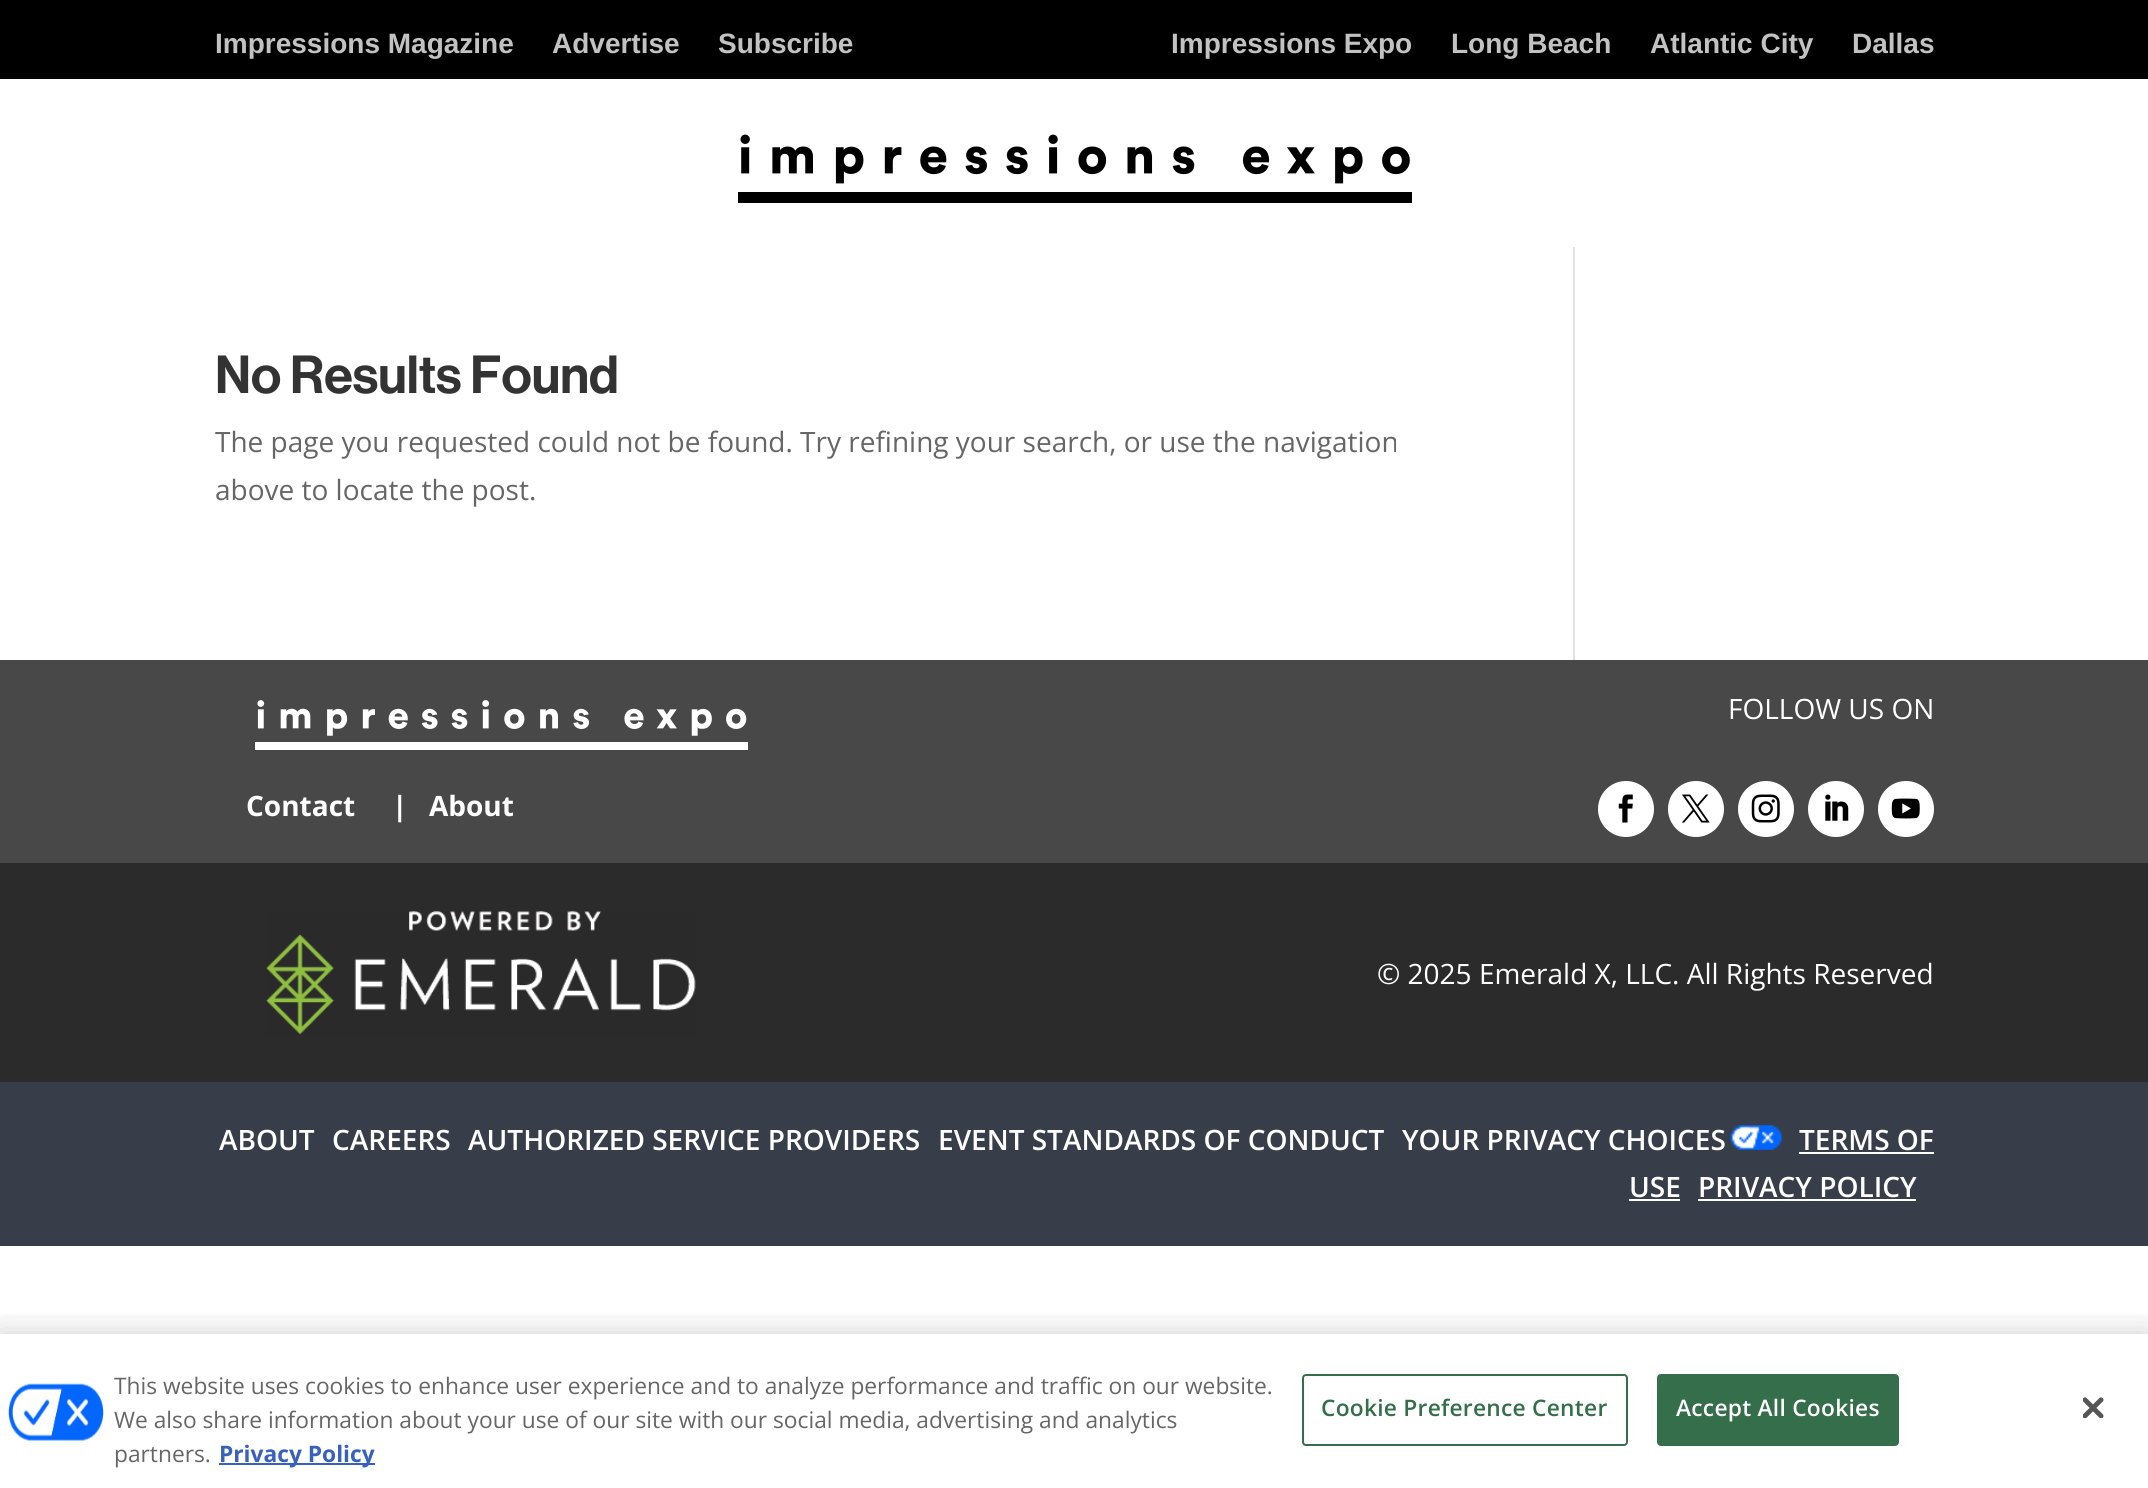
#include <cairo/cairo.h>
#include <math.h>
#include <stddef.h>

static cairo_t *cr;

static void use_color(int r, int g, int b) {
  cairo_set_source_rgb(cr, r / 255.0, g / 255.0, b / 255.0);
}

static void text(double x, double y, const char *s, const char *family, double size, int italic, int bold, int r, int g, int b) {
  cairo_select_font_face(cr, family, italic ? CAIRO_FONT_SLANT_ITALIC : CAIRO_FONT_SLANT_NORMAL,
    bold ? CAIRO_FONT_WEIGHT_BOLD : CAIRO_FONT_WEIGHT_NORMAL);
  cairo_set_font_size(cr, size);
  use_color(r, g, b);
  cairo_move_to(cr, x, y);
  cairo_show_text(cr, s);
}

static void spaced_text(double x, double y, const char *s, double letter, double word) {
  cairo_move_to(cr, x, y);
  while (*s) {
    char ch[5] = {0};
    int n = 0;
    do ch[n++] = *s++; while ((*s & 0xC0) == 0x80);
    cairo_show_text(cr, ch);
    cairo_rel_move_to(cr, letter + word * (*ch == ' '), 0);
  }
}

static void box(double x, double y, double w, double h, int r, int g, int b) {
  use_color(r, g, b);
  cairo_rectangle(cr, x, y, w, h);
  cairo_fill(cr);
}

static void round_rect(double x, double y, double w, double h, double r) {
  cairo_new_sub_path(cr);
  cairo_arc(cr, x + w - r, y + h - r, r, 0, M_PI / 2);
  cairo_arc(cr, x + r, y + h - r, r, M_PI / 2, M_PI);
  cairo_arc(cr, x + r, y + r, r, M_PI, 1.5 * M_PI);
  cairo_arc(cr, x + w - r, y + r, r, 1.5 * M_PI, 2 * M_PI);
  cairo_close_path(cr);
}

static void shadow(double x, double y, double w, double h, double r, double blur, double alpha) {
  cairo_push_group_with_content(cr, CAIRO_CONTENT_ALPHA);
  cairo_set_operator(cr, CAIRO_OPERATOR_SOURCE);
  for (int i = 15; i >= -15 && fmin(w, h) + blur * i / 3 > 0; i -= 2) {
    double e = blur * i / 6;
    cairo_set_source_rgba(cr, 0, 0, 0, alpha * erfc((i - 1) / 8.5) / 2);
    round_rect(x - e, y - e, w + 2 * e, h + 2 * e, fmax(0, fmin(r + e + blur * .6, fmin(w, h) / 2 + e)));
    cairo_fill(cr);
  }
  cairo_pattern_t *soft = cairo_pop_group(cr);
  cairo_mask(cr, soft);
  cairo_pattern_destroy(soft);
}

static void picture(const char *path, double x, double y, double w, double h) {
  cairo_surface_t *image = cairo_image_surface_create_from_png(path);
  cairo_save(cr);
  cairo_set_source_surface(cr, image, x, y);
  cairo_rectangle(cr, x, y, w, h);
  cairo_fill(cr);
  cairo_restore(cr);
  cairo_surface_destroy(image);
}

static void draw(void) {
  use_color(255, 255, 255);
  cairo_paint(cr);
  box(0, 0, 2148, 79, 0, 0, 0);
  picture("img_01.png", 738, 134, 674, 69);
  box(1573, 247, 2, 413, 226, 226, 226);
  box(0, 660, 2148, 203, 72, 72, 72);
  use_color(255, 255, 255);
  cairo_arc(cr, 1626, 809, 28, 0, 2 * M_PI);
  cairo_fill(cr);
  picture("img_02.png", 1618, 794, 15, 29);
  cairo_arc(cr, 1696, 809, 28, 0, 2 * M_PI);
  cairo_fill(cr);
  picture("img_03.png", 1681, 794, 29, 29);
  cairo_arc(cr, 1766, 809, 28, 0, 2 * M_PI);
  cairo_fill(cr);
  picture("img_04.png", 1751, 794, 29, 29);
  cairo_arc(cr, 1836, 809, 28, 0, 2 * M_PI);
  cairo_fill(cr);
  picture("img_05.png", 1825, 794, 24, 27);
  cairo_arc(cr, 1906, 809, 28, 0, 2 * M_PI);
  cairo_fill(cr);
  picture("img_06.png", 1891, 798, 29, 21);
  picture("img_07.png", 255, 700, 493, 50);
  box(0, 863, 2148, 219, 43, 43, 43);
  picture("img_08.png", 266, 911, 430, 124);
  box(0, 1082, 2148, 164, 55, 62, 74);
  picture("img_09.png", 1730, 1125, 52, 25);
  box(1799, 1152, 135, 2, 255, 255, 255);
  box(1629, 1199, 51, 2, 255, 255, 255);
  box(1698, 1199, 218, 2, 255, 255, 255);
  cairo_save(cr);
  cairo_rectangle(cr, 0, 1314, 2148, 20);
  cairo_clip(cr);
  use_color(0, 0, 0);
  shadow(0, 1334, 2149, 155, 0, 16, 0.2);
  cairo_restore(cr);
  picture("img_10.png", 8, 1383, 96, 58);
  box(219, 1463, 156, 2, 56, 96, 190);
  round_rect(1303, 1375, 324, 70, 3);
  use_color(52, 110, 74);
  cairo_stroke(cr);
  round_rect(1658, 1375, 240, 70, 3);
  cairo_fill_preserve(cr);
  cairo_stroke(cr);
  picture("img_11.png", 2083, 1397, 21, 21);
  text(215, 53, "Impressions Magazine", "Liberation Sans", 28, 0, 1, 194, 194, 194);
  text(552, 53, "Advertise", "Liberation Sans", 28, 0, 1, 194, 194, 194);
  text(718, 53, "Subscribe", "Liberation Sans", 28, 0, 1, 194, 194, 194);
  text(1171, 53, "Impressions Expo", "Liberation Sans", 28, 0, 1, 194, 194, 194);
  text(1451, 53, "Long Beach", "Liberation Sans", 28, 0, 1, 194, 194, 194);
  text(1650, 53, "Atlantic City", "Liberation Sans", 28, 0, 1, 194, 194, 194);
  text(1852, 53, "Dallas", "Liberation Sans", 28, 0, 1, 194, 194, 194);
  text(215, 393, "No Results Found", "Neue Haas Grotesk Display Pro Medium", 52.5, 0, 0, 51, 51, 51);
  text(215, 452, "The page you requested could not be found. Try refining your search, or use the navigation", "Open Sans", 28, 0, 0, 102, 102, 102);
  text(215, 500, "above to locate the post.", "Open Sans", 28, 0, 0, 102, 102, 102);
  text(1728, 719, "FOLLOW US ON", "Open Sans", 28, 0, 0, 255, 255, 255);
  text(246, 816, "Contact", "Open Sans", 28, 0, 1, 255, 255, 255);
  text(392, 816, "|", "Open Sans", 28, 0, 1, 255, 255, 255);
  text(429, 816, "About", "Open Sans", 28, 0, 1, 255, 255, 255);
  text(1377, 984, "© 2025 Emerald X, LLC. All Rights Reserved", "Open Sans", 28, 0, 0, 255, 255, 255);
  text(219, 1150, "ABOUT", "Open Sans SemiBold", 28, 0, 0, 255, 255, 255);
  text(332, 1150, "CAREERS", "Open Sans SemiBold", 28, 0, 0, 255, 255, 255);
  text(468, 1150, "AUTHORIZED SERVICE PROVIDERS", "Open Sans SemiBold", 28, 0, 0, 255, 255, 255);
  text(938, 1150, "EVENT STANDARDS OF CONDUCT", "Open Sans SemiBold", 28, 0, 0, 255, 255, 255);
  text(1402, 1150, "YOUR PRIVACY CHOICES", "Open Sans SemiBold", 28, 0, 0, 255, 255, 255);
  text(1799, 1150, "TERMS OF", "Open Sans SemiBold", 28, 0, 0, 255, 255, 255);
  text(1629, 1197, "USE", "Open Sans SemiBold", 28, 0, 0, 255, 255, 255);
  text(1698, 1197, "PRIVACY POLICY", "Open Sans SemiBold", 28, 0, 0, 255, 255, 255);
  text(114, 1394, "This website uses cookies to enhance user experience and to analyze performance and traffic on our website.", "Open Sans", 22.75, 0, 0, 102, 102, 102);
  text(114, 1428, "We also share information about your use of our site with our social media, advertising and analytics", "Open Sans", 22.75, 0, 0, 102, 102, 102);
  text(114, 1462, "partners.", "Open Sans", 22.75, 0, 0, 102, 102, 102);
  text(219, 1462, "Privacy Policy", "Open Sans", 22.75, 0, 1, 56, 96, 190);
  cairo_select_font_face(cr, "Open Sans SemiBold", CAIRO_FONT_SLANT_NORMAL, CAIRO_FONT_WEIGHT_NORMAL);
  use_color(52, 110, 74);
  spaced_text(1321, 1416, "Cookie Preference Center", 0.25, 0);
  use_color(255, 255, 255);
  spaced_text(1676, 1416, "Accept All Cookies", 0.25, 0);
}

int main(void) {
  cairo_surface_t *surface = cairo_image_surface_create(CAIRO_FORMAT_RGB24, 2148, 1488);
  cr = cairo_create(surface);
  cairo_font_options_t *options = cairo_font_options_create();
  cairo_font_options_set_hint_metrics(options, CAIRO_HINT_METRICS_OFF);
  cairo_font_options_set_hint_style(options, CAIRO_HINT_STYLE_NONE);
  cairo_set_font_options(cr, options);
  cairo_set_miter_limit(cr, 4);
  draw();
  cairo_surface_write_to_png(surface, "out.png");
  cairo_font_options_destroy(options);
  cairo_destroy(cr);
  cairo_surface_destroy(surface);
  return 0;
}
